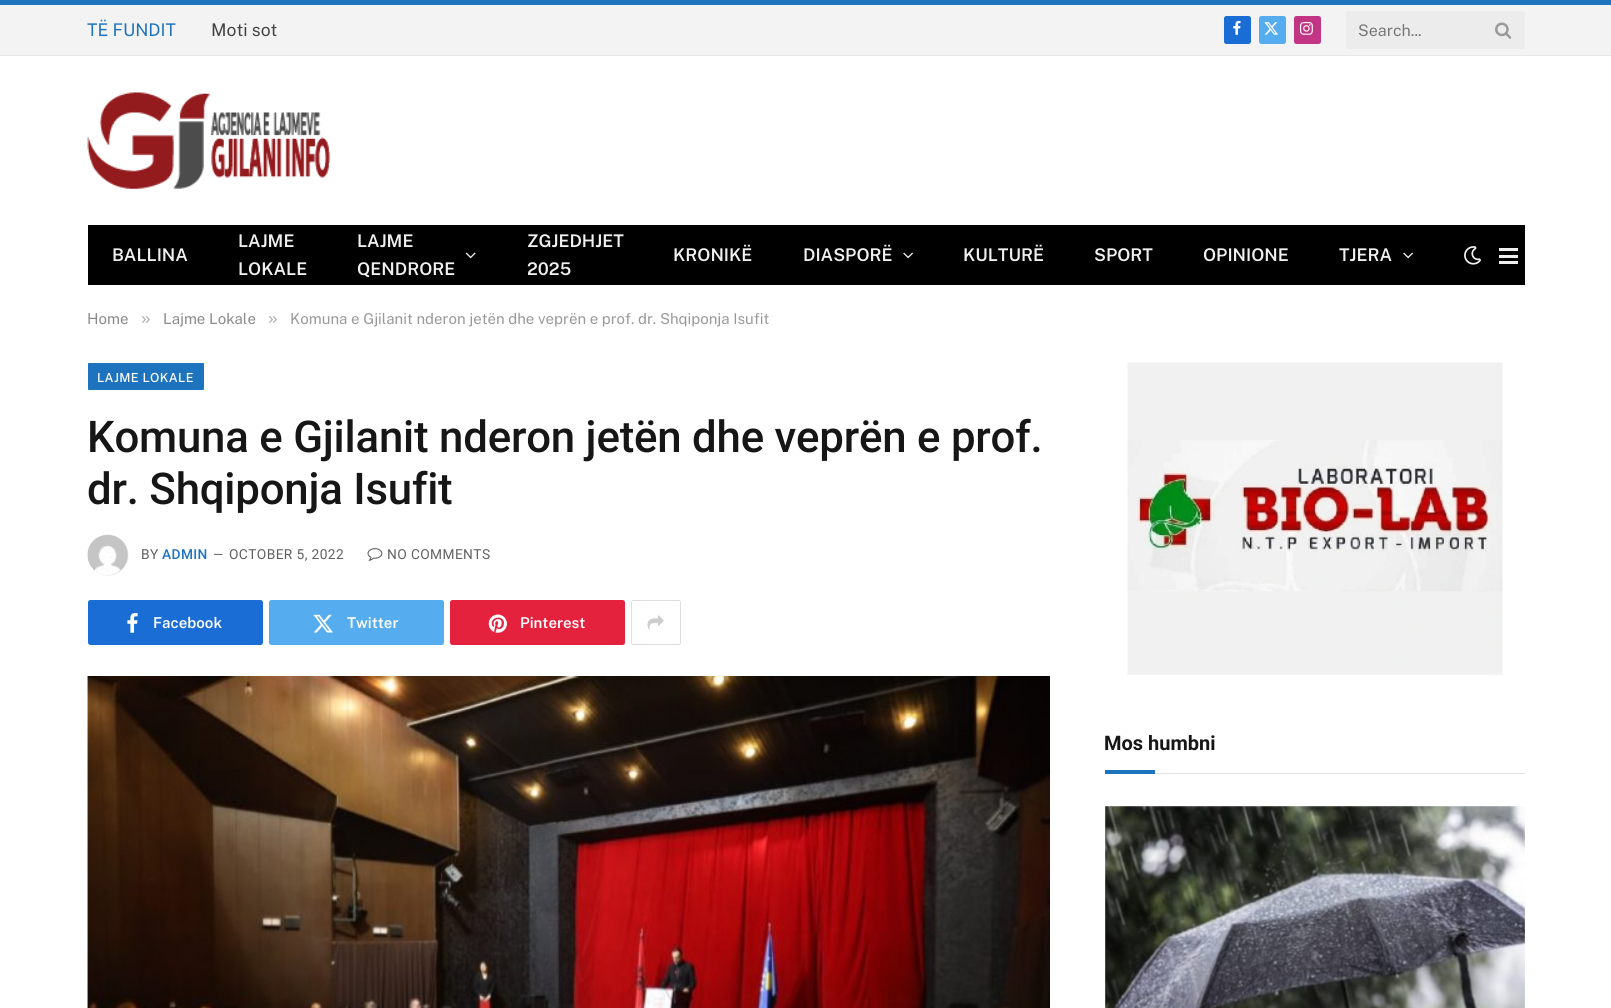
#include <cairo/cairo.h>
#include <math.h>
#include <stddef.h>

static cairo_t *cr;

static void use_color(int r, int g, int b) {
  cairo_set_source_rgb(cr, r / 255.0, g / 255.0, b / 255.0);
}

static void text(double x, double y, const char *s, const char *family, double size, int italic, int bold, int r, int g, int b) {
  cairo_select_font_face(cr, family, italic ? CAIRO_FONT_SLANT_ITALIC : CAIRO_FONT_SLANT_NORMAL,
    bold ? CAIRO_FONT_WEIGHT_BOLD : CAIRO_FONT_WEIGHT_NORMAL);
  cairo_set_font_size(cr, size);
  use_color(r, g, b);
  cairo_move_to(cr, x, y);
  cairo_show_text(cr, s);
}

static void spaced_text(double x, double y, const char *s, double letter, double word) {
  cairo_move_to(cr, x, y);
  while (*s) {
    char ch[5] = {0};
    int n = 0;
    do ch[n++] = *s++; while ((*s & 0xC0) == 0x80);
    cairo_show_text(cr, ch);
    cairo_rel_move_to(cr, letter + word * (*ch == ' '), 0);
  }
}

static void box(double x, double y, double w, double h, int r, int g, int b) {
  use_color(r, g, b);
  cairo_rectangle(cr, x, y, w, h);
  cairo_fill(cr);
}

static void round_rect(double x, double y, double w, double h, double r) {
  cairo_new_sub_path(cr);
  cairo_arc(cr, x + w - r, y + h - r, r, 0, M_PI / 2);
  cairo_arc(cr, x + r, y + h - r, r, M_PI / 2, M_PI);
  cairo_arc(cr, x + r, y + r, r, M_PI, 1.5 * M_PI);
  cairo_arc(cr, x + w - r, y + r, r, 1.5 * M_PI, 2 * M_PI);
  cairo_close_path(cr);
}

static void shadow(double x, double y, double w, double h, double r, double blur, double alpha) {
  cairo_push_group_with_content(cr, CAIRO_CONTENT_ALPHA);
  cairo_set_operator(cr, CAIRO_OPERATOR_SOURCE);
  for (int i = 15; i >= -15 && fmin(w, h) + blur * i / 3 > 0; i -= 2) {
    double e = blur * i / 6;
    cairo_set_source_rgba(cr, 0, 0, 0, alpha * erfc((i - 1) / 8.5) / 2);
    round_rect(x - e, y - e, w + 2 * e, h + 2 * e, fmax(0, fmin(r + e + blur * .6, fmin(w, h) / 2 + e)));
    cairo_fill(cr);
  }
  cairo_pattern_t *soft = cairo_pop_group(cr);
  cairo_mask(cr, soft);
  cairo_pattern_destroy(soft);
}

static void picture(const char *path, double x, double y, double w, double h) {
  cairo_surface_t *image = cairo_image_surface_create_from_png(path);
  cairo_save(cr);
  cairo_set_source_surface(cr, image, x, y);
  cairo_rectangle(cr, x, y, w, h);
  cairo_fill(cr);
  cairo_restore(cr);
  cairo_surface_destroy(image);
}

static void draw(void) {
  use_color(255, 255, 255);
  cairo_paint(cr);
  box(0, 5, 1611, 50, 243, 243, 243);
  box(0, 0, 1611, 5, 30, 115, 190);
  box(0, 55, 1611, 1, 232, 232, 232);
  use_color(26, 109, 212);
  round_rect(1224, 16, 27, 28, 2.5);
  cairo_fill(cr);
  picture("img_01.png", 1233, 20, 8, 15);
  use_color(85, 172, 239);
  round_rect(1259, 16, 27, 28, 2.5);
  cairo_fill(cr);
  picture("img_02.png", 1264, 22, 15, 13);
  use_color(193, 53, 132);
  round_rect(1294, 16, 27, 28, 2.5);
  cairo_fill(cr);
  picture("img_03.png", 1300, 21, 13, 14);
  use_color(236, 236, 236);
  round_rect(1346, 11, 179, 38, 2.5);
  cairo_fill(cr);
  picture("img_04.png", 1495, 22, 17, 17);
  picture("img_05.png", 87, 92, 244, 97);
  box(88, 225, 1437, 60, 0, 0, 0);
  picture("img_06.png", 465, 252, 11, 7);
  picture("img_07.png", 903, 252, 10, 7);
  picture("img_07.png", 1403, 252, 10, 7);
  picture("img_08.png", 1464, 246, 17, 19);
  box(1499, 261, 19, 3, 240, 240, 240);
  box(1499, 248, 19, 3, 240, 240, 240);
  box(1499, 255, 19, 3, 240, 240, 240);
  use_color(30, 115, 190);
  round_rect(88, 363, 116, 27, 1);
  cairo_fill(cr);
  use_color(0, 0, 0);
  shadow(88, 535, 40, 40, 20, 0.5, 0.2);
  picture("img_09.png", 87, 535, 41, 40);
  picture("img_10.png", 367, 548, 16, 13);
  use_color(26, 109, 212);
  round_rect(88, 600, 175, 45, 2.5);
  cairo_fill(cr);
  picture("img_11.png", 127, 613, 11, 20);
  use_color(85, 172, 239);
  round_rect(269, 600, 175, 45, 2.5);
  cairo_fill(cr);
  picture("img_12.png", 313, 614, 20, 19);
  use_color(228, 34, 62);
  round_rect(450, 600, 175, 45, 2.5);
  cairo_fill(cr);
  picture("img_13.png", 488, 614, 19, 19);
  round_rect(631.5, 600.5, 49, 44, 2);
  use_color(221, 221, 221);
  cairo_set_line_width(cr, 1);
  cairo_stroke(cr);
  picture("img_14.png", 647, 615, 17, 15);
  picture("img_15.png", 87, 676, 963, 332);
  picture("img_16.png", 1127, 362, 376, 313);
  box(1155, 773, 370, 1, 226, 226, 226);
  box(1105, 770, 50, 4, 30, 115, 190);
  picture("img_17.png", 1105, 806, 420, 202);
  text(87, 36, "TË FUNDIT", "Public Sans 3 Thin", 17.5, 0, 0, 30, 115, 190);
  text(211, 36, "Moti sot", "Public Sans 3 Thin", 17.5, 0, 0, 68, 68, 68);
  text(1358, 36, "Search...", "Public Sans 3 Thin", 16, 0, 0, 119, 119, 119);
  text(112, 261, "BALLINA", "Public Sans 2 Thin", 17.5, 0, 0, 240, 240, 240);
  text(238, 247, "LAJME", "Public Sans 2 Thin", 17.5, 0, 0, 240, 240, 240);
  text(238, 275, "LOKALE", "Public Sans 2 Thin", 17.5, 0, 0, 240, 240, 240);
  text(357, 247, "LAJME", "Public Sans 2 Thin", 17.5, 0, 0, 240, 240, 240);
  text(357, 275, "QENDRORE", "Public Sans 2 Thin", 17.5, 0, 0, 240, 240, 240);
  text(527, 247, "ZGJEDHJET", "Public Sans 2 Thin", 17.5, 0, 0, 240, 240, 240);
  text(527, 275, "2025", "Public Sans 2 Thin", 17.5, 0, 0, 240, 240, 240);
  text(673, 261, "KRONIKË", "Public Sans 2 Thin", 17.5, 0, 0, 240, 240, 240);
  text(803, 261, "DIASPORË", "Public Sans 2 Thin", 17.5, 0, 0, 240, 240, 240);
  text(963, 261, "KULTURË", "Public Sans 2 Thin", 17.5, 0, 0, 240, 240, 240);
  text(1094, 261, "SPORT", "Public Sans 2 Thin", 17.5, 0, 0, 240, 240, 240);
  text(1203, 261, "OPINIONE", "Public Sans 2 Thin", 17.5, 0, 0, 240, 240, 240);
  text(1339, 261, "TJERA", "Public Sans 2 Thin", 17.5, 0, 0, 240, 240, 240);
  text(87, 324, "Home", "Public Sans 3 Thin", 15, 0, 0, 138, 138, 138);
  text(141, 324, "»", "Liberation Sans", 17, 0, 0, 173, 173, 173);
  text(163, 324, "Lajme Lokale", "Public Sans 3 Thin", 15, 0, 0, 138, 138, 138);
  text(268, 324, "»", "Liberation Sans", 17, 0, 0, 173, 173, 173);
  text(290, 324, "Komuna e Gjilanit nderon jetën dhe veprën e prof. dr. Shqiponja Isufit", "Public Sans 3 Thin", 15, 0, 0, 153, 153, 153);
  cairo_select_font_face(cr, "Public Sans Thin", CAIRO_FONT_SLANT_NORMAL, CAIRO_FONT_WEIGHT_NORMAL);
  cairo_set_font_size(cr, 12.5);
  use_color(255, 255, 255);
  spaced_text(97, 382, "LAJME LOKALE", 0.4, 0);
  cairo_select_font_face(cr, "Roboto Medium", CAIRO_FONT_SLANT_NORMAL, CAIRO_FONT_WEIGHT_NORMAL);
  cairo_set_font_size(cr, 43.75);
  use_color(22, 22, 22);
  spaced_text(87, 452, "Komuna e Gjilanit nderon jetën dhe veprën e prof.", -0.2, 0);
  spaced_text(87, 504, "dr. Shqiponja Isufit", -0.2, 0);
  cairo_select_font_face(cr, "Roboto", CAIRO_FONT_SLANT_NORMAL, CAIRO_FONT_WEIGHT_NORMAL);
  cairo_set_font_size(cr, 13.75);
  use_color(96, 96, 96);
  spaced_text(141, 559, "BY", 0.4, 0);
  cairo_select_font_face(cr, "Roboto Medium", CAIRO_FONT_SLANT_NORMAL, CAIRO_FONT_WEIGHT_NORMAL);
  use_color(30, 115, 190);
  spaced_text(162, 559, "ADMIN", 0.4, 0);
  cairo_select_font_face(cr, "Roboto", CAIRO_FONT_SLANT_NORMAL, CAIRO_FONT_WEIGHT_NORMAL);
  cairo_set_font_size(cr, 13);
  use_color(96, 96, 96);
  spaced_text(213, 559, "—", 0.4, 0);
  cairo_set_font_size(cr, 13.75);
  spaced_text(229, 559, "OCTOBER 5, 2022", 0.4, 0);
  spaced_text(387, 559, "NO COMMENTS", 0.4, 0);
  text(153, 628, "Facebook", "Public Sans 2 Thin", 15, 0, 0, 255, 255, 255);
  text(347, 628, "Twitter", "Public Sans 2 Thin", 15, 0, 0, 255, 255, 255);
  text(520, 628, "Pinterest", "Public Sans 2 Thin", 15, 0, 0, 255, 255, 255);
  text(1104, 750, "Mos humbni", "Roboto", 20, 0, 1, 22, 22, 22);
}

int main(void) {
  cairo_surface_t *surface = cairo_image_surface_create(CAIRO_FORMAT_RGB24, 1611, 1008);
  cr = cairo_create(surface);
  cairo_font_options_t *options = cairo_font_options_create();
  cairo_font_options_set_hint_metrics(options, CAIRO_HINT_METRICS_OFF);
  cairo_font_options_set_hint_style(options, CAIRO_HINT_STYLE_NONE);
  cairo_set_font_options(cr, options);
  cairo_set_miter_limit(cr, 4);
  draw();
  cairo_surface_write_to_png(surface, "out.png");
  cairo_font_options_destroy(options);
  cairo_destroy(cr);
  cairo_surface_destroy(surface);
  return 0;
}
